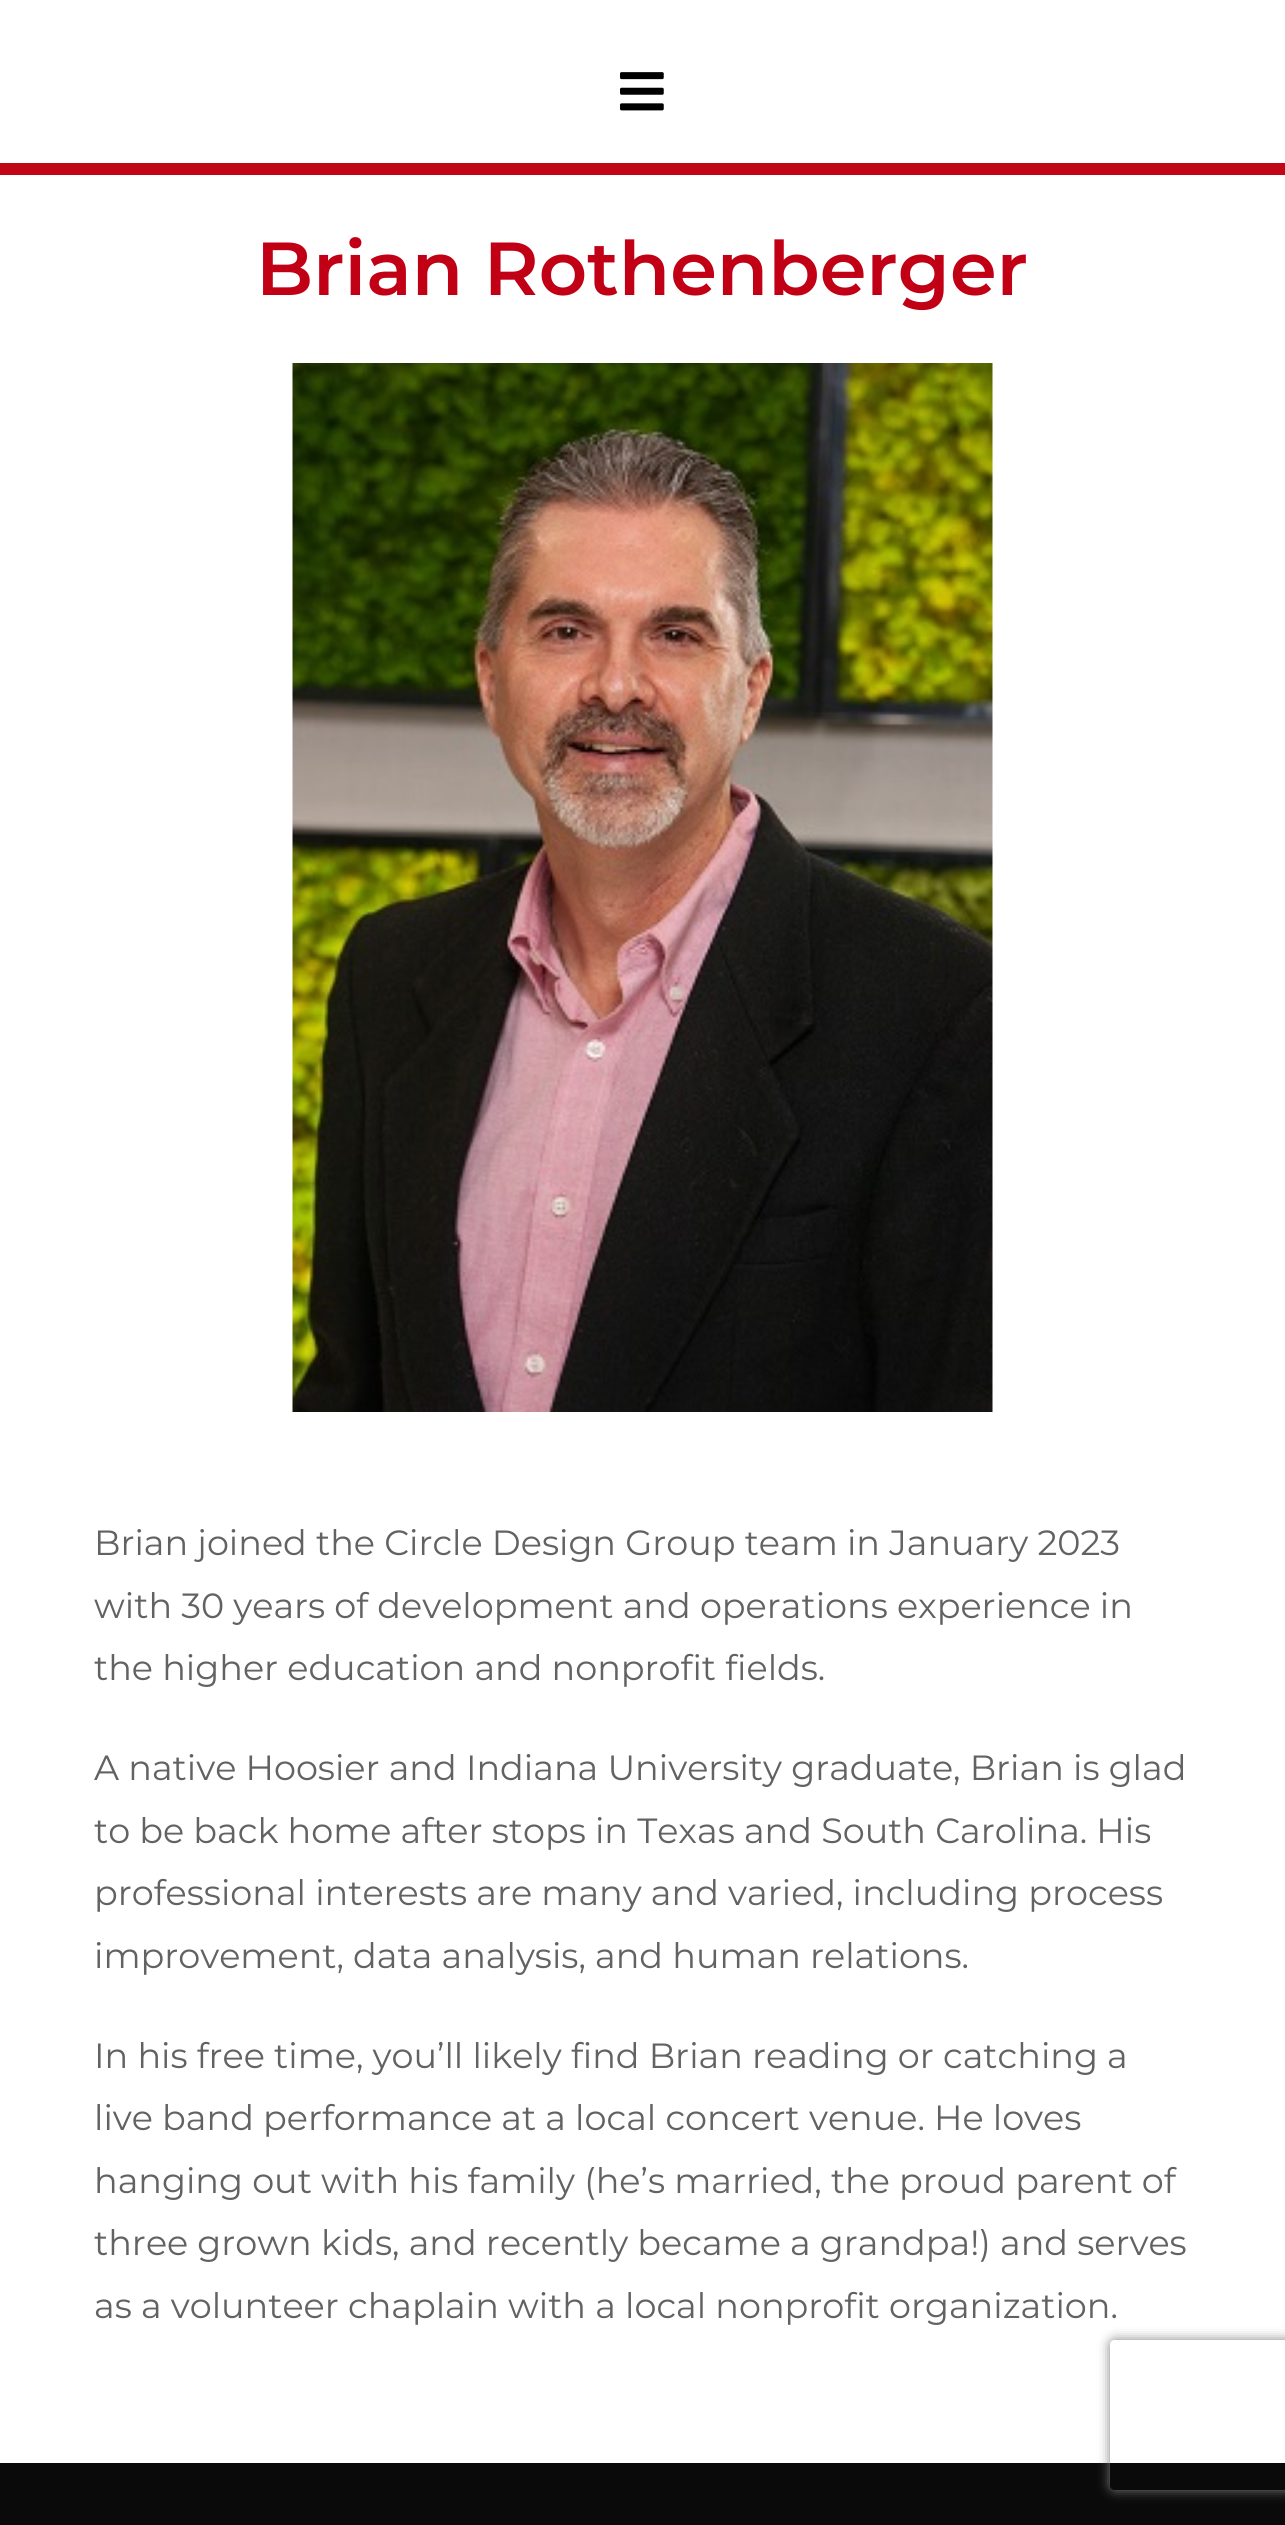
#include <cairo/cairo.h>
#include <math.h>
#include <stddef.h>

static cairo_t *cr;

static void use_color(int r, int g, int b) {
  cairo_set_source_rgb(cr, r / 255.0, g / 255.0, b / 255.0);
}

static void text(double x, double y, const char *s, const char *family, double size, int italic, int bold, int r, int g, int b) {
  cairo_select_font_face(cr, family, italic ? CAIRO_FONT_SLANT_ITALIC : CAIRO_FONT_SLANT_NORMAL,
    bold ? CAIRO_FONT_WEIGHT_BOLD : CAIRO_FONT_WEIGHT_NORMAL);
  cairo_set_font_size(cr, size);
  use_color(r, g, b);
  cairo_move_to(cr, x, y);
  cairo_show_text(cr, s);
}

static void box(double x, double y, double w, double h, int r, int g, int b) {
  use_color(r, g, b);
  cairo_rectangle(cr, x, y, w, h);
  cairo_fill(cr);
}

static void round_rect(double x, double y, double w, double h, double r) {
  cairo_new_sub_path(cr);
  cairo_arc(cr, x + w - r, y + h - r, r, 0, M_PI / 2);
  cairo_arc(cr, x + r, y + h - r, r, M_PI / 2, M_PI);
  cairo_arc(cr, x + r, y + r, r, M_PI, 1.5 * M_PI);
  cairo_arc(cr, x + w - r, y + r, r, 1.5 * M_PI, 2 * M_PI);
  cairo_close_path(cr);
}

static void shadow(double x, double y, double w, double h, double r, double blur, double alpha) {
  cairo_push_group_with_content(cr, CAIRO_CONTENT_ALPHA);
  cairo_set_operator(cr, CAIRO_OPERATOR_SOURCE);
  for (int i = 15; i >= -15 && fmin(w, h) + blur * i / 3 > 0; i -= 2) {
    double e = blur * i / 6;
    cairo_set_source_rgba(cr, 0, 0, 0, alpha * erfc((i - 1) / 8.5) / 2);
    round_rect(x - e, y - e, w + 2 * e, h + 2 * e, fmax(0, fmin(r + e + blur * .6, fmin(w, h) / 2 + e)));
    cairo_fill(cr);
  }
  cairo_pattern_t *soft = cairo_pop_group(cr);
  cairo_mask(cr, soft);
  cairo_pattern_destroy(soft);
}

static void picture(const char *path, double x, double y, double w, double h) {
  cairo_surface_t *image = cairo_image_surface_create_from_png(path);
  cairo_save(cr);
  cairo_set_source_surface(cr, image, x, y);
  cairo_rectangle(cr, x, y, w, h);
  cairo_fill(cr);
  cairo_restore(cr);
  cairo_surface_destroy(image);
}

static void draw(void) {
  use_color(255, 255, 255);
  cairo_paint(cr);
  box(0, 163, 1285, 12, 193, 7, 23);
  picture("img_01.png", 620, 72, 44, 39);
  picture("img_02.png", 292, 363, 701, 1049);
  box(0, 2463, 1285, 62, 10, 10, 10);
  cairo_save(cr);
  cairo_set_fill_rule(cr, CAIRO_FILL_RULE_EVEN_ODD);
  cairo_new_path(cr);
  cairo_move_to(cr, 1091, 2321);
  cairo_line_to(cr, 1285, 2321);
  cairo_line_to(cr, 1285, 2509);
  cairo_line_to(cr, 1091, 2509);
  cairo_close_path(cr);
  cairo_move_to(cr, 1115, 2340);
  cairo_line_to(cr, 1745, 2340);
  cairo_curve_to(cr, 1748, 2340, 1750, 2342, 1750, 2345);
  cairo_line_to(cr, 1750, 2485);
  cairo_curve_to(cr, 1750, 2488, 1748, 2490, 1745, 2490);
  cairo_line_to(cr, 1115, 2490);
  cairo_curve_to(cr, 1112, 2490, 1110, 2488, 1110, 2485);
  cairo_line_to(cr, 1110, 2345);
  cairo_curve_to(cr, 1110, 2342, 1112, 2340, 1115, 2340);
  cairo_close_path(cr);
  cairo_clip(cr);
  use_color(128, 128, 128);
  shadow(1110, 2340, 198, 150, 5, 6, 1);
  cairo_restore(cr);
  text(256, 295, "Brian Rothenberger", "Montserrat SemiBold", 75, 0, 0, 193, 0, 22);
  text(94, 1555, "Brian joined the Circle Design Group team in January 2023", "Montserrat", 35, 0, 0, 98, 98, 98);
  text(94, 1618, "with 30 years of development and operations experience in", "Montserrat", 35, 0, 0, 98, 98, 98);
  text(94, 1680, "the higher education and nonprofit fields.", "Montserrat", 35, 0, 0, 98, 98, 98);
  text(94, 1780, "A native Hoosier and Indiana University graduate, Brian is glad", "Montserrat", 35, 0, 0, 98, 98, 98);
  text(94, 1843, "to be back home after stops in Texas and South Carolina. His", "Montserrat", 35, 0, 0, 98, 98, 98);
  text(94, 1905, "professional interests are many and varied, including process", "Montserrat", 35, 0, 0, 98, 98, 98);
  text(94, 1968, "improvement, data analysis, and human relations.", "Montserrat", 35, 0, 0, 98, 98, 98);
  text(94, 2068, "In his free time, you’ll likely find Brian reading or catching a", "Montserrat", 35, 0, 0, 98, 98, 98);
  text(94, 2130, "live band performance at a local concert venue. He loves", "Montserrat", 35, 0, 0, 98, 98, 98);
  text(94, 2193, "hanging out with his family (he’s married, the proud parent of", "Montserrat", 35, 0, 0, 98, 98, 98);
  text(94, 2255, "three grown kids, and recently became a grandpa!) and serves", "Montserrat", 35, 0, 0, 98, 98, 98);
  text(94, 2318, "as a volunteer chaplain with a local nonprofit organization.", "Montserrat", 35, 0, 0, 98, 98, 98);
}

int main(void) {
  cairo_surface_t *surface = cairo_image_surface_create(CAIRO_FORMAT_RGB24, 1285, 2525);
  cr = cairo_create(surface);
  cairo_font_options_t *options = cairo_font_options_create();
  cairo_font_options_set_hint_metrics(options, CAIRO_HINT_METRICS_OFF);
  cairo_font_options_set_hint_style(options, CAIRO_HINT_STYLE_NONE);
  cairo_set_font_options(cr, options);
  cairo_set_miter_limit(cr, 4);
  draw();
  cairo_surface_write_to_png(surface, "out.png");
  cairo_font_options_destroy(options);
  cairo_destroy(cr);
  cairo_surface_destroy(surface);
  return 0;
}
